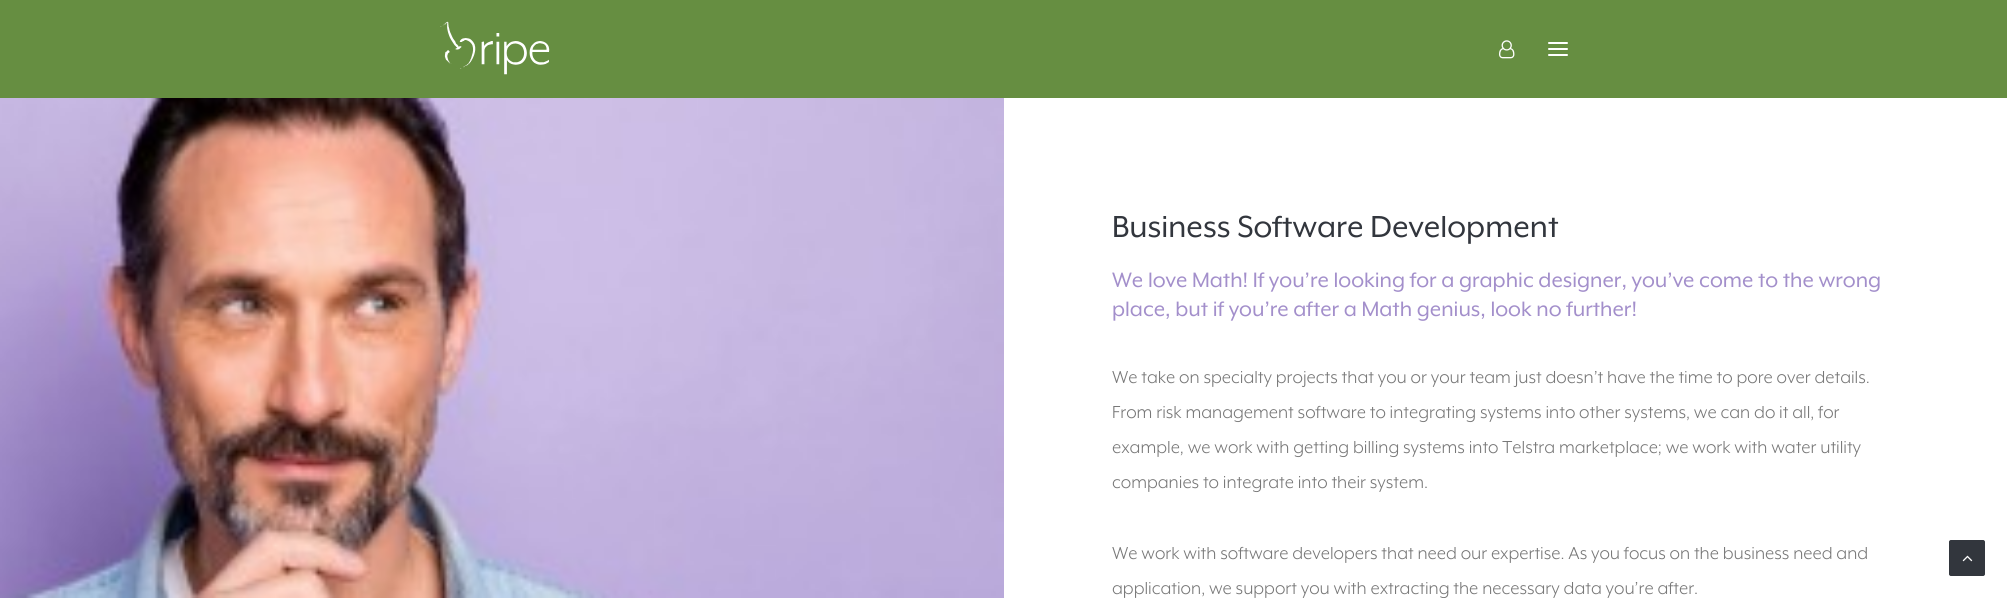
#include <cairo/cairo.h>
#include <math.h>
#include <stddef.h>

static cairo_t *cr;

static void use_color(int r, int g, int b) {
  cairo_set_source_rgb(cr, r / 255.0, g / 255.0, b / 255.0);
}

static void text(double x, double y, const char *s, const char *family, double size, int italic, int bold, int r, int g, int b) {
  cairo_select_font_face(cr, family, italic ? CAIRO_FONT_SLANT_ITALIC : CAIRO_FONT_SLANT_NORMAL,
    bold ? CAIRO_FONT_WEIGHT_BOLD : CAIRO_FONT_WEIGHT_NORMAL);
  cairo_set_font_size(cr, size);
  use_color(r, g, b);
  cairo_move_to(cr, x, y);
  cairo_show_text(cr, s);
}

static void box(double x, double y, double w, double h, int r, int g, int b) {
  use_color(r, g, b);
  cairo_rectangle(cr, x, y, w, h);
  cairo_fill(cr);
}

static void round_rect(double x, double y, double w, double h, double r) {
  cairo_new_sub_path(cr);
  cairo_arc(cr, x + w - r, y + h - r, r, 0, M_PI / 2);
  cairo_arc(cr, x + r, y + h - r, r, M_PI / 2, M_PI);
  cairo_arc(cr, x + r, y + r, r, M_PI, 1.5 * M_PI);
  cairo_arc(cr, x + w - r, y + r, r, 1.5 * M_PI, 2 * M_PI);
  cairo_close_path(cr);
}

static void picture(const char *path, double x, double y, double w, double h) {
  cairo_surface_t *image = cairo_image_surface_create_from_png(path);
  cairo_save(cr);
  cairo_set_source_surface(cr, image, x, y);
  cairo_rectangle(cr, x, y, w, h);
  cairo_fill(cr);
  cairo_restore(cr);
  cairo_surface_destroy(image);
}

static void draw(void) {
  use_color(255, 255, 255);
  cairo_paint(cr);
  box(0, 0, 2007, 98, 102, 142, 65);
  picture("img_01.png", 440, 21, 110, 54);
  picture("img_02.png", 1499, 40, 16, 19);
  use_color(255, 255, 255);
  round_rect(1548, 48, 20, 2, 1);
  cairo_fill(cr);
  round_rect(1548, 42, 20, 2, 1);
  cairo_fill(cr);
  round_rect(1548, 54, 20, 2, 1);
  cairo_fill(cr);
  picture("img_03.png", 0, 98, 1004, 500);
  use_color(50, 54, 61);
  round_rect(1949.5, 540.5, 35, 35, 1.5);
  cairo_fill_preserve(cr);
  cairo_set_line_width(cr, 1);
  cairo_stroke(cr);
  picture("img_04.png", 1962, 555, 11, 7);
  text(1112, 237, "Business Software Development", "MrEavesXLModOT", 35, 0, 0, 50, 54, 61);
  text(1112, 287, "We love Math! If you’re looking for a graphic designer, you’ve come to the wrong", "MrEavesXLModOT", 24, 0, 0, 163, 143, 203);
  text(1112, 316, "place, but if you’re after a Math genius, look no further!", "MrEavesXLModOT", 24, 0, 0, 163, 143, 203);
  text(1112, 383, "We take on specialty projects that you or your team just doesn’t have the time to pore over details.", "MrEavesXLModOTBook", 20, 0, 0, 119, 119, 119);
  text(1112, 418, "From risk management software to integrating systems into other systems, we can do it all, for", "MrEavesXLModOTBook", 20, 0, 0, 119, 119, 119);
  text(1112, 453, "example, we work with getting billing systems into Telstra marketplace; we work with water utility", "MrEavesXLModOTBook", 20, 0, 0, 119, 119, 119);
  text(1112, 488, "companies to integrate into their system.", "MrEavesXLModOTBook", 20, 0, 0, 119, 119, 119);
  text(1112, 559, "We work with software developers that need our expertise. As you focus on the business need and", "MrEavesXLModOTBook", 20, 0, 0, 119, 119, 119);
  text(1112, 594, "application, we support you with extracting the necessary data you’re after.", "MrEavesXLModOTBook", 20, 0, 0, 119, 119, 119);
}

int main(void) {
  cairo_surface_t *surface = cairo_image_surface_create(CAIRO_FORMAT_RGB24, 2007, 598);
  cr = cairo_create(surface);
  cairo_font_options_t *options = cairo_font_options_create();
  cairo_font_options_set_hint_metrics(options, CAIRO_HINT_METRICS_OFF);
  cairo_font_options_set_hint_style(options, CAIRO_HINT_STYLE_NONE);
  cairo_set_font_options(cr, options);
  cairo_set_miter_limit(cr, 4);
  draw();
  cairo_surface_write_to_png(surface, "out.png");
  cairo_font_options_destroy(options);
  cairo_destroy(cr);
  cairo_surface_destroy(surface);
  return 0;
}
